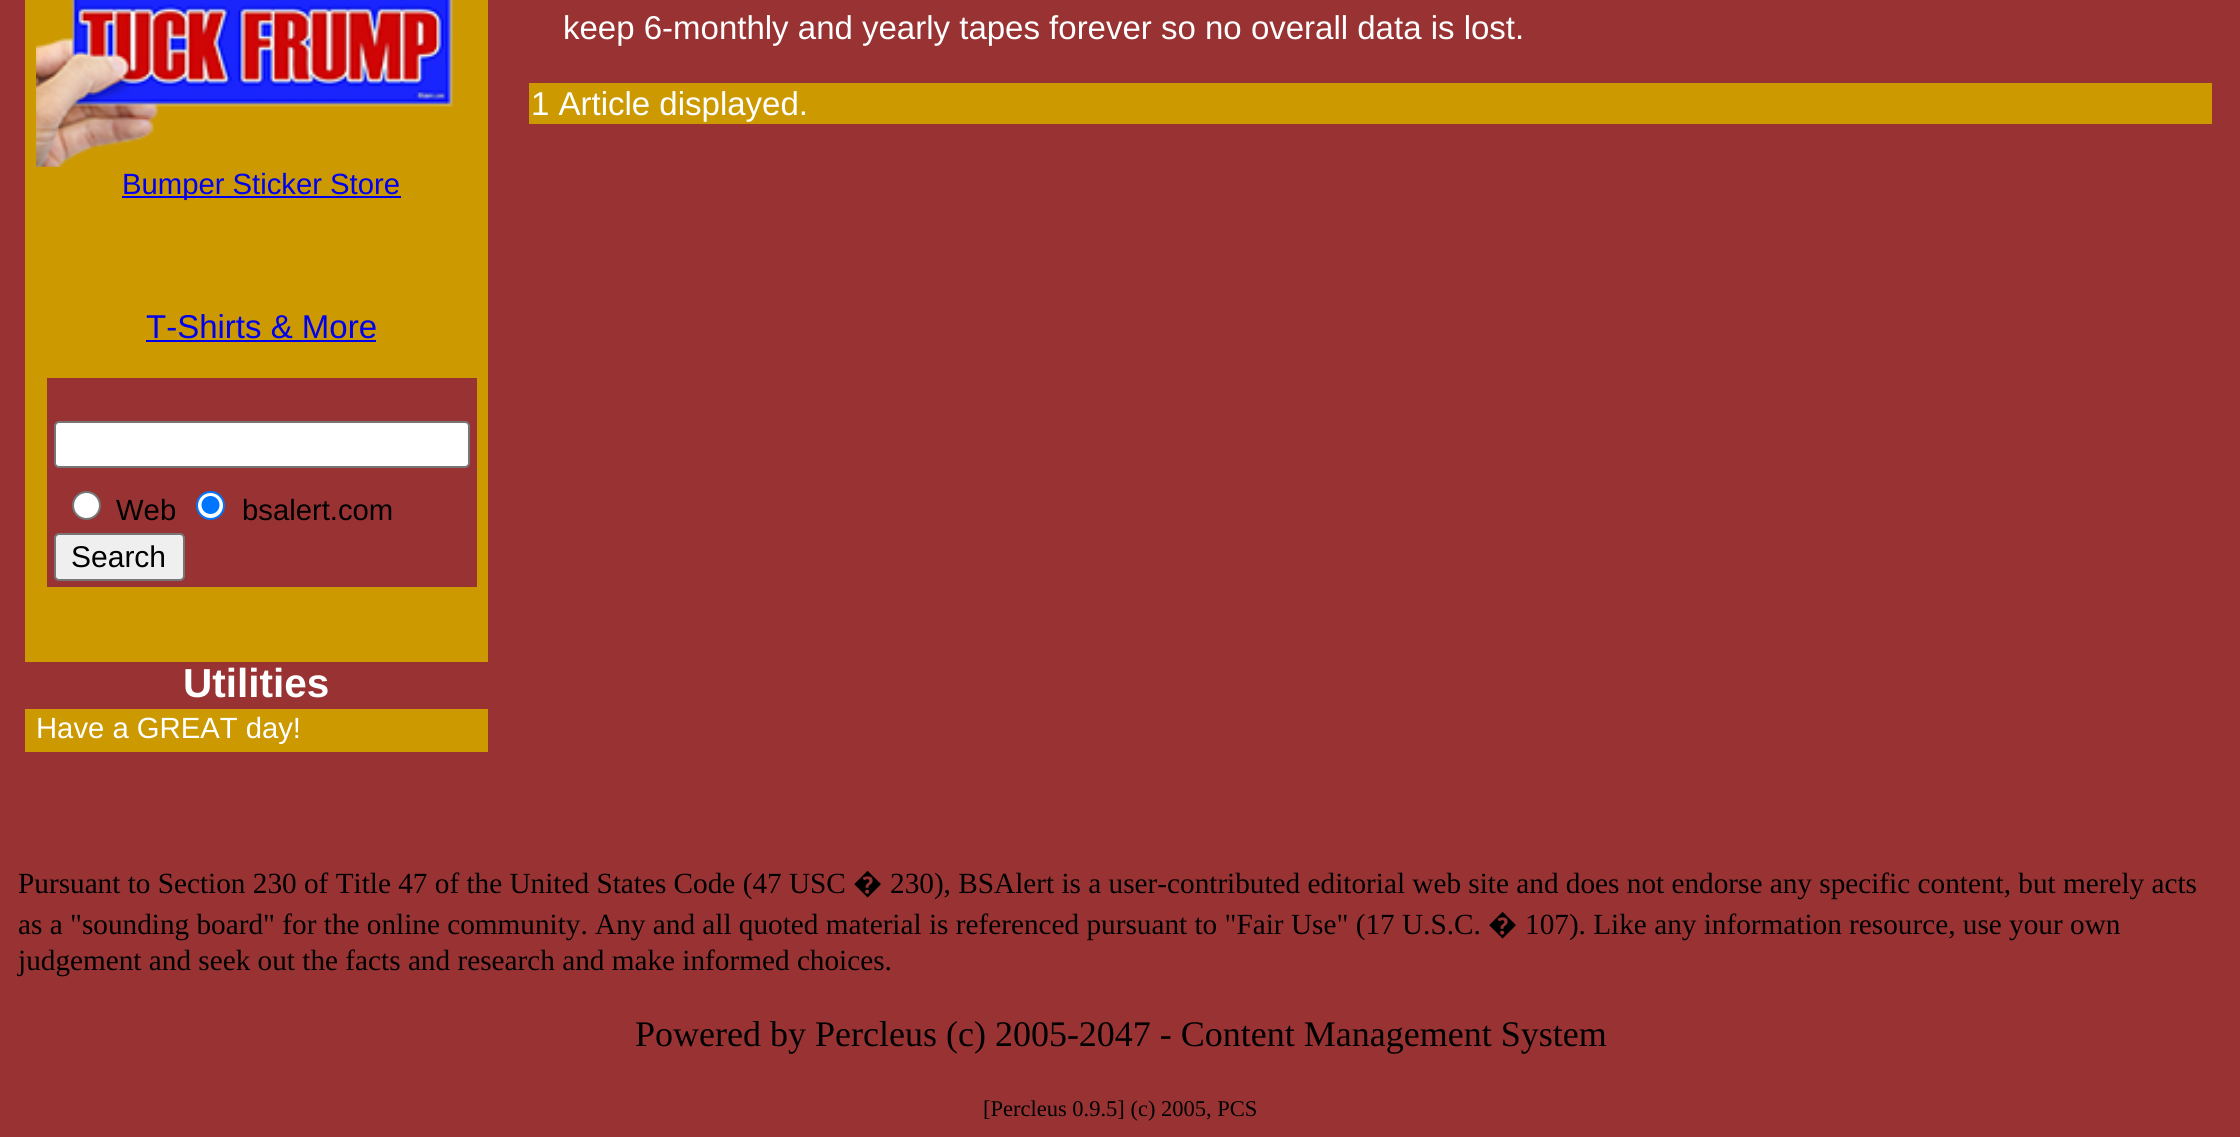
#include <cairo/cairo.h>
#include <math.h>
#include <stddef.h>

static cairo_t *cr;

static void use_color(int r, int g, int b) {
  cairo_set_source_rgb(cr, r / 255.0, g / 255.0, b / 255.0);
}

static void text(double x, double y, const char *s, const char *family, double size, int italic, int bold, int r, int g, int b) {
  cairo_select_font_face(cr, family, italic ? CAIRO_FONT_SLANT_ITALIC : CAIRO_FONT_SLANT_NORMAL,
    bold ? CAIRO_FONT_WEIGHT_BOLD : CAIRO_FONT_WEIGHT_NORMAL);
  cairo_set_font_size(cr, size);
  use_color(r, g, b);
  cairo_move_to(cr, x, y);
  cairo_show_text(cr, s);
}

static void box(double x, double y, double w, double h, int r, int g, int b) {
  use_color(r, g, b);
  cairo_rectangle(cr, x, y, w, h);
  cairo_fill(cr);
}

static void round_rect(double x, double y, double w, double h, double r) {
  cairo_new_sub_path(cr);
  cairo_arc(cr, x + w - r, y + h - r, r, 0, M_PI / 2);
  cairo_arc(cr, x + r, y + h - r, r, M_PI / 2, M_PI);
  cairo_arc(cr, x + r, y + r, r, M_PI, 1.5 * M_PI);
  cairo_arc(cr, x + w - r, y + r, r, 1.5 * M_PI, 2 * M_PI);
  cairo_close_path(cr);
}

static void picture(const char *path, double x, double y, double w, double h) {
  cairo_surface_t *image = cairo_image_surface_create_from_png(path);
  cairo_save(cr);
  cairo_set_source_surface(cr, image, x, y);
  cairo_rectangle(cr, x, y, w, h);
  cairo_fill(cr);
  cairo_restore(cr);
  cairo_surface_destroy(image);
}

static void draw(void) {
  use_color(153, 51, 51);
  cairo_paint(cr);
  box(529, 83, 1683, 41, 204, 153, 0);
  box(25, 0, 463, 662, 204, 153, 0);
  picture("img_01.png", 36, 0, 417, 167);
  box(122, 196, 279, 2, 0, 0, 238);
  box(146, 340, 230, 2, 0, 0, 238);
  box(47, 378, 430, 209, 153, 51, 51);
  use_color(255, 255, 255);
  round_rect(55, 422, 414, 45, 4);
  cairo_fill_preserve(cr);
  use_color(118, 118, 118);
  cairo_stroke(cr);
  use_color(255, 255, 255);
  cairo_arc(cr, 86.5, 505.5, 13.5, 0, 2 * M_PI);
  cairo_fill_preserve(cr);
  use_color(118, 118, 118);
  cairo_stroke(cr);
  use_color(255, 255, 255);
  cairo_arc(cr, 210.5, 505.5, 13.5, 0, 2 * M_PI);
  cairo_fill_preserve(cr);
  use_color(0, 117, 255);
  cairo_stroke(cr);
  cairo_arc(cr, 210.5, 505, 9, 0, 2 * M_PI);
  cairo_fill(cr);
  use_color(239, 239, 239);
  round_rect(55, 534, 129, 46, 4);
  cairo_fill_preserve(cr);
  use_color(118, 118, 118);
  cairo_stroke(cr);
  box(25, 709, 463, 43, 204, 153, 0);
  text(563, 39, "keep 6-monthly and yearly tapes forever so no overall data is lost.", "Liberation Sans", 33, 0, 0, 255, 255, 255);
  text(531, 115, "1 Article displayed.", "Liberation Sans", 33, 0, 0, 255, 255, 255);
  text(122, 194, "Bumper Sticker Store", "Liberation Sans", 29.25, 0, 0, 0, 0, 238);
  text(146, 338, "T-Shirts & More", "Liberation Sans", 33, 0, 0, 0, 0, 238);
  text(116, 520, "Web", "Liberation Sans", 29.25, 0, 0, 0, 0, 0);
  text(242, 520, "bsalert.com", "Liberation Sans", 29.25, 0, 0, 0, 0, 0);
  text(71, 567, "Search", "Liberation Sans", 30, 0, 0, 0, 0, 0);
  text(183, 697, "Utilities", "Liberation Sans", 40.5, 0, 1, 255, 255, 255);
  text(36, 738, "Have a GREAT day!", "Liberation Sans", 29.25, 0, 0, 255, 255, 255);
  text(18, 893, "Pursuant to Section 230 of Title 47 of the United States Code (47 USC", "Liberation Serif", 29.25, 0, 0, 0, 0, 0);
  text(853, 893, "�", "Noto Sans", 29.25, 0, 0, 0, 0, 0);
  text(890, 893, "230), BSAlert is a user-contributed editorial web site and does not endorse any specific content, but merely acts", "Liberation Serif", 29.25, 0, 0, 0, 0, 0);
  text(18, 934, "as a \"sounding board\" for the online community. Any and all quoted material is referenced pursuant to \"Fair Use\" (17 U.S.C.", "Liberation Serif", 29.25, 0, 0, 0, 0, 0);
  text(1488, 934, "�", "Noto Sans", 29.25, 0, 0, 0, 0, 0);
  text(1525, 934, "107). Like any information resource, use your own", "Liberation Serif", 29.25, 0, 0, 0, 0, 0);
  text(18, 970, "judgement and seek out the facts and research and make informed choices.", "Liberation Serif", 29.25, 0, 0, 0, 0, 0);
  text(635, 1046, "Powered by Percleus (c) 2005-2047 - Content Management System", "Liberation Serif", 36, 0, 0, 0, 0, 0);
  text(983, 1116, "[Percleus 0.9.5] (c) 2005, PCS", "Liberation Serif", 22.5, 0, 0, 0, 0, 0);
}

int main(void) {
  cairo_surface_t *surface = cairo_image_surface_create(CAIRO_FORMAT_RGB24, 2240, 1137);
  cr = cairo_create(surface);
  cairo_font_options_t *options = cairo_font_options_create();
  cairo_font_options_set_hint_metrics(options, CAIRO_HINT_METRICS_OFF);
  cairo_font_options_set_hint_style(options, CAIRO_HINT_STYLE_NONE);
  cairo_set_font_options(cr, options);
  cairo_set_miter_limit(cr, 4);
  draw();
  cairo_surface_write_to_png(surface, "out.png");
  cairo_font_options_destroy(options);
  cairo_destroy(cr);
  cairo_surface_destroy(surface);
  return 0;
}
